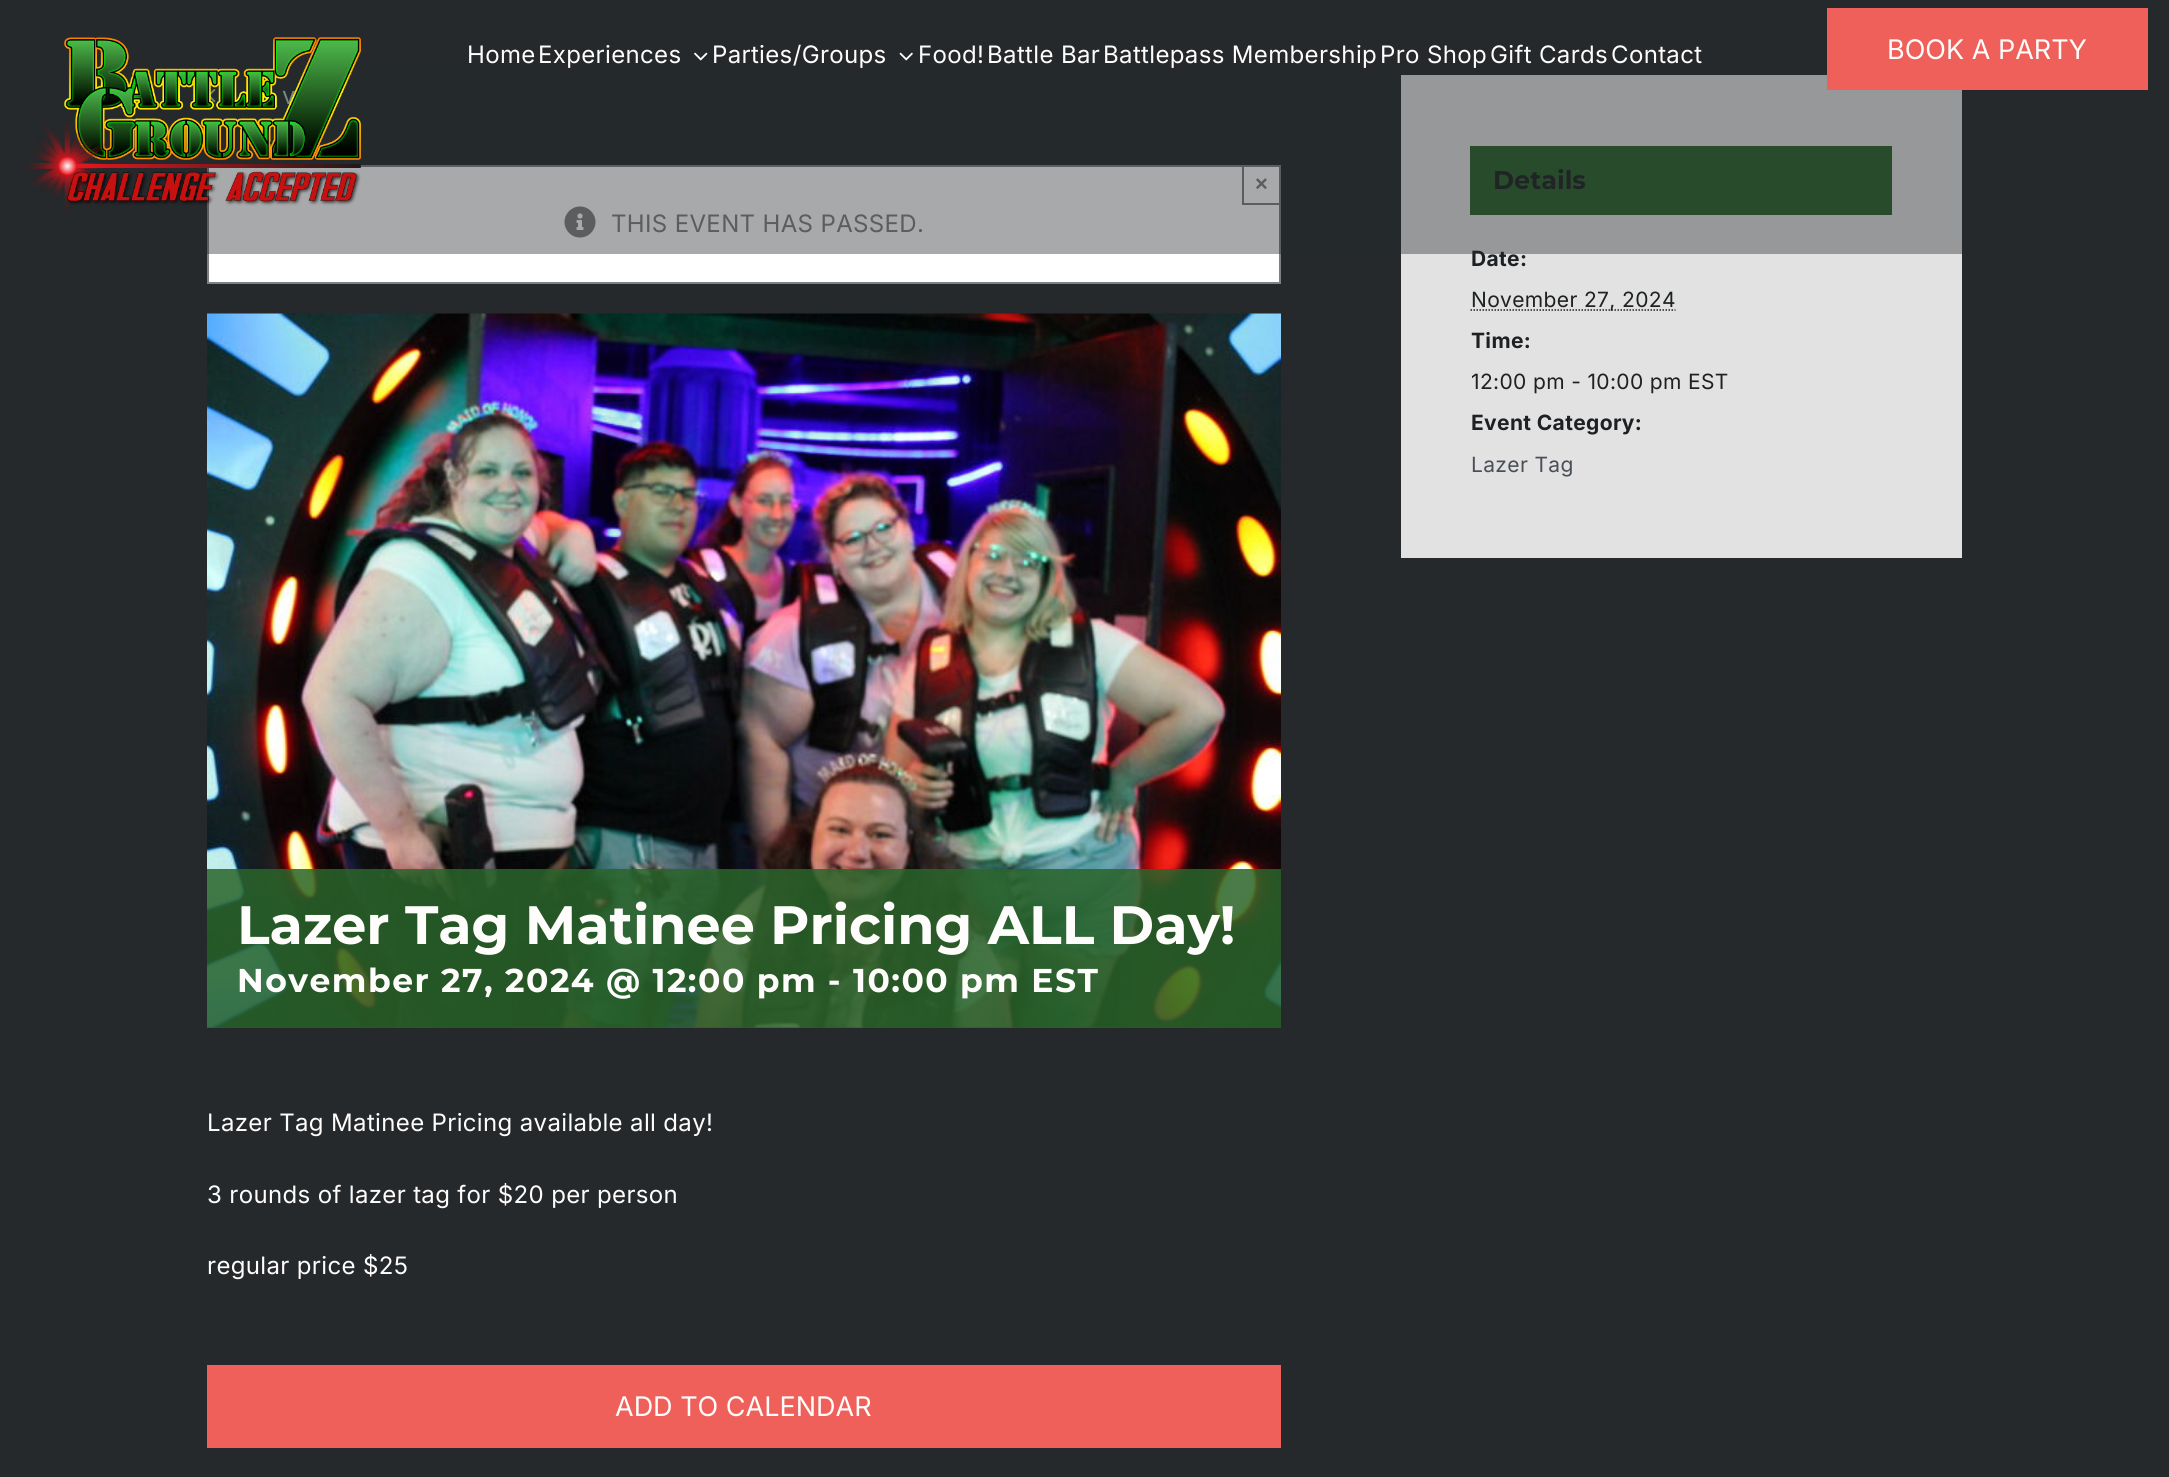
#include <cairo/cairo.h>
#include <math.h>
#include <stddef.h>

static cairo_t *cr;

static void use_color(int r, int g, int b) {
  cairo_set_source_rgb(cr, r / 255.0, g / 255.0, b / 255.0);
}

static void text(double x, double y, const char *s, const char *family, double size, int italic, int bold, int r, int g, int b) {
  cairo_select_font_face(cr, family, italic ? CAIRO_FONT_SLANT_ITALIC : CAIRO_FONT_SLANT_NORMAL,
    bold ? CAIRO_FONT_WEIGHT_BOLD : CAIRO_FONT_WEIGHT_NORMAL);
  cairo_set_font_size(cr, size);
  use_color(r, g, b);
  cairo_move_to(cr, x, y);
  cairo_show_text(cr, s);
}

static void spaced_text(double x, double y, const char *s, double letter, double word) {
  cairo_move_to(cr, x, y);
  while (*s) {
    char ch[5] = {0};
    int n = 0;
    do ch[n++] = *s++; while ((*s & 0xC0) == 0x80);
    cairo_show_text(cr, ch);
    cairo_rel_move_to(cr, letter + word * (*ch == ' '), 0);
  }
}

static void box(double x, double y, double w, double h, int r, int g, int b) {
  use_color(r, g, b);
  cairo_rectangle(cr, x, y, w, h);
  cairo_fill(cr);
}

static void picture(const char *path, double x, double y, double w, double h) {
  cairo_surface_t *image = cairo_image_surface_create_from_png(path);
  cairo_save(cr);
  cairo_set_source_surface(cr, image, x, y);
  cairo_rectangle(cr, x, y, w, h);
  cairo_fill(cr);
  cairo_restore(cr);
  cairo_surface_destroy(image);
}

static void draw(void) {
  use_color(37, 41, 43);
  cairo_paint(cr);
  picture("img_02.png", 694, 52, 14, 9);
  picture("img_03.png", 899, 52, 14, 9);
  picture("img_04.png", 210, 89, 6, 14);
  use_color(255, 255, 255);
  cairo_rectangle(cr, 208, 166, 1072, 117);
  cairo_fill_preserve(cr);
  use_color(128, 128, 128);
  cairo_stroke(cr);
  box(1242, 203, 39, 2, 128, 128, 128);
  box(1242, 165, 2, 39, 128, 128, 128);
  picture("img_05.png", 564, 206, 32, 32);
  picture("img_06.png", 207, 313, 1074, 715);
  cairo_set_source_rgba(cr, 0.169, 0.392, 0.169, 0.85);
  cairo_rectangle(cr, 207, 869, 1074, 159);
  cairo_fill(cr);
  box(207, 1365, 1074, 83, 238, 96, 89);
  box(1401, 75, 561, 483, 226, 226, 226);
  box(1470, 146, 422, 69, 43, 100, 43);
  cairo_new_path(cr);
  cairo_move_to(cr, 1470.5, 310);
  cairo_line_to(cr, 1675.5, 310);
  use_color(30, 33, 35);
  cairo_set_line_width(cr, 1.5);
  cairo_set_dash(cr, (double[]){1.5, 1.5}, 2, 0);
  cairo_stroke(cr);
  cairo_select_font_face(cr, "Inter", CAIRO_FONT_SLANT_NORMAL, CAIRO_FONT_WEIGHT_NORMAL);
  cairo_set_font_size(cr, 24);
  use_color(255, 252, 252);
  spaced_text(467, 63, "Home", 0.35, 0);
  spaced_text(538, 63, "Experiences", 0.35, 0);
  spaced_text(712, 63, "Parties/Groups", 0.35, 0);
  spaced_text(918, 63, "Food!", 0.35, 0);
  spaced_text(987, 63, "Battle Bar", 0.35, 0);
  spaced_text(1103, 63, "Battlepass Membership", 0.35, 0);
  spaced_text(1380, 63, "Pro Shop", 0.35, 0);
  spaced_text(1490, 63, "Gift Cards", 0.35, 0);
  spaced_text(1611, 63, "Contact", 0.35, 0);
  use_color(173, 201, 180);
  spaced_text(282, 104, "v", 0.35, 0);
  text(1255, 191, "×", "Liberation Sans", 22, 0, 1, 128, 128, 128);
  cairo_select_font_face(cr, "Inter", CAIRO_FONT_SLANT_NORMAL, CAIRO_FONT_WEIGHT_NORMAL);
  cairo_set_font_size(cr, 24);
  spaced_text(611, 232, "THIS EVENT HAS PASSED.", 0.35, 0);
  text(237, 944, "Lazer Tag Matinee Pricing ALL Day!", "Montserrat Thin", 54, 0, 0, 255, 252, 252);
  cairo_set_font_size(cr, 33);
  spaced_text(237, 992, "November 27, 2024 @ 12:00 pm - 10:00 pm EST", 1.5, 0);
  cairo_select_font_face(cr, "Inter", CAIRO_FONT_SLANT_NORMAL, CAIRO_FONT_WEIGHT_NORMAL);
  cairo_set_font_size(cr, 24);
  spaced_text(207, 1131, "Lazer Tag Matinee Pricing available all day!", 0.35, 0);
  spaced_text(207, 1203, "3 rounds of lazer tag for $20 per person", 0.35, 0);
  spaced_text(207, 1274, "regular price $25", 0.35, 0);
  text(615, 1416, "ADD TO CALENDAR", "Inter", 27, 0, 0, 255, 252, 252);
  text(1493, 189, "Details", "Montserrat Thin", 25.5, 0, 0, 30, 33, 35);
  cairo_select_font_face(cr, "Inter", CAIRO_FONT_SLANT_NORMAL, CAIRO_FONT_WEIGHT_BOLD);
  cairo_set_font_size(cr, 21);
  spaced_text(1471, 266, "Date:", 0.35, 0);
  cairo_set_source_rgba(cr, 0.145, 0.161, 0.169, 0.4);
  cairo_rectangle(cr, 207, 75, 1755, 179);
  cairo_fill(cr);
  picture("img_01.png", 24, 37, 337, 177);
  box(1827, 8, 321, 82, 238, 96, 89);
  text(1887, 59, "BOOK A PARTY", "Inter", 27, 0, 0, 255, 252, 252);
  cairo_set_font_size(cr, 21);
  use_color(30, 33, 35);
  spaced_text(1471, 307, "November 27, 2024", 0.35, 0);
  cairo_select_font_face(cr, "Inter", CAIRO_FONT_SLANT_NORMAL, CAIRO_FONT_WEIGHT_BOLD);
  spaced_text(1471, 348, "Time:", 0.35, 0);
  cairo_select_font_face(cr, "Inter", CAIRO_FONT_SLANT_NORMAL, CAIRO_FONT_WEIGHT_NORMAL);
  spaced_text(1471, 389, "12:00 pm - 10:00 pm EST", 0.35, 0);
  cairo_select_font_face(cr, "Inter", CAIRO_FONT_SLANT_NORMAL, CAIRO_FONT_WEIGHT_BOLD);
  spaced_text(1471, 430, "Event Category:", 0.35, 0);
  cairo_select_font_face(cr, "Inter", CAIRO_FONT_SLANT_NORMAL, CAIRO_FONT_WEIGHT_NORMAL);
  use_color(74, 78, 87);
  spaced_text(1471, 472, "Lazer Tag", 0.35, 0);
}

int main(void) {
  cairo_surface_t *surface = cairo_image_surface_create(CAIRO_FORMAT_RGB24, 2169, 1477);
  cr = cairo_create(surface);
  cairo_font_options_t *options = cairo_font_options_create();
  cairo_font_options_set_hint_metrics(options, CAIRO_HINT_METRICS_OFF);
  cairo_font_options_set_hint_style(options, CAIRO_HINT_STYLE_NONE);
  cairo_set_font_options(cr, options);
  cairo_set_miter_limit(cr, 4);
  draw();
  cairo_surface_write_to_png(surface, "out.png");
  cairo_font_options_destroy(options);
  cairo_destroy(cr);
  cairo_surface_destroy(surface);
  return 0;
}
